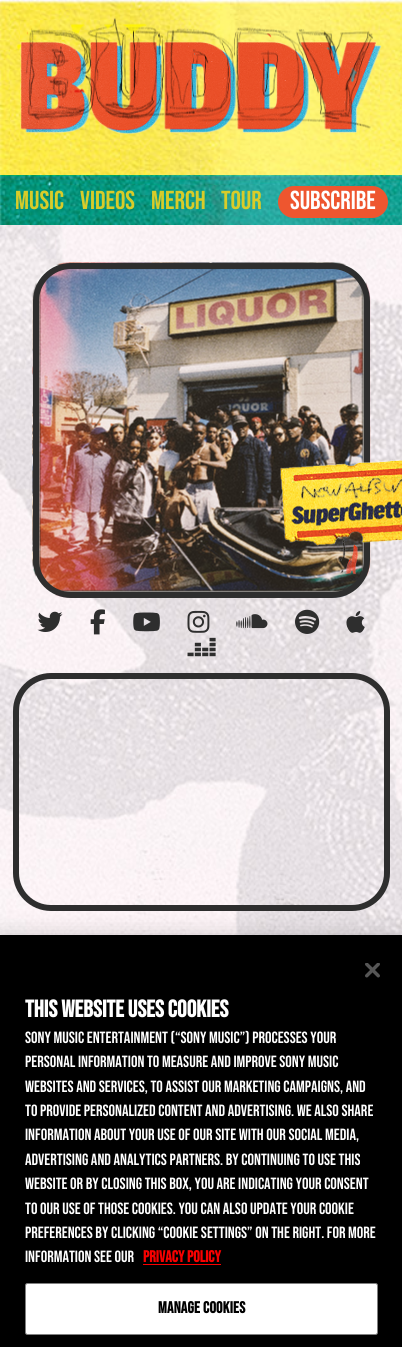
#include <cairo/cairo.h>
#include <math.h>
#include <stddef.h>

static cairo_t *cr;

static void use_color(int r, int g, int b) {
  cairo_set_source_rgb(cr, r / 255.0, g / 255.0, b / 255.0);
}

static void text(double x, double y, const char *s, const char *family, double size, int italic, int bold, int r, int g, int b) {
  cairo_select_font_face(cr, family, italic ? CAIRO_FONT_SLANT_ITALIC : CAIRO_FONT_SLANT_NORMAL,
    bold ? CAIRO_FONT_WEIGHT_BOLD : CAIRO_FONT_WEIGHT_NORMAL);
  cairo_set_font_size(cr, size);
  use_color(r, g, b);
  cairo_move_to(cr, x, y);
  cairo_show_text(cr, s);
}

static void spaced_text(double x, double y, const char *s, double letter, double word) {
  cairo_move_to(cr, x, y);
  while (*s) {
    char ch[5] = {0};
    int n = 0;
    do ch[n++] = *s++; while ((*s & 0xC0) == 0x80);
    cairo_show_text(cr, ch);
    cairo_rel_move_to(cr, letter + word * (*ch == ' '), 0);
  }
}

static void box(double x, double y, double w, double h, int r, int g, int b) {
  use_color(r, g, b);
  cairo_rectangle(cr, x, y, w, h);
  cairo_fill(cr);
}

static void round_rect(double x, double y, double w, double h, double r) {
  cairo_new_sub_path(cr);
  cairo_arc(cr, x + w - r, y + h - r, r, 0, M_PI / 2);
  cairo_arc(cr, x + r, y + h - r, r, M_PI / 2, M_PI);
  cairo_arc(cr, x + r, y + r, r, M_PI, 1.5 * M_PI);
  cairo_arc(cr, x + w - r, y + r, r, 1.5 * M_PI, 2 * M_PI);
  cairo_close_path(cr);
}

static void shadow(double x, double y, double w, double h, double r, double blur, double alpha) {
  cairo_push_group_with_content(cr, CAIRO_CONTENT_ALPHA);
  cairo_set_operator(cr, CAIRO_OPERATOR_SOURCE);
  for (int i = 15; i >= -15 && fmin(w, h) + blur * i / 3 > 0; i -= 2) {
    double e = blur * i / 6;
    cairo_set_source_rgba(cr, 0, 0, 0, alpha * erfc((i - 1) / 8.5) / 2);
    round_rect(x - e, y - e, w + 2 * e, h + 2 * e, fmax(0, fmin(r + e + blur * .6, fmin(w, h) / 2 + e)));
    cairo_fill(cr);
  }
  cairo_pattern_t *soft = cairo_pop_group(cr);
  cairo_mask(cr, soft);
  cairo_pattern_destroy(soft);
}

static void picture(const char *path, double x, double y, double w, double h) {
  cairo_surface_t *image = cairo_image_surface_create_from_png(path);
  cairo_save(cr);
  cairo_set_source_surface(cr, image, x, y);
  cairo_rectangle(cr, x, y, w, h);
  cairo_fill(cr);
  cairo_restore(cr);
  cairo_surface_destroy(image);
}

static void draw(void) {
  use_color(255, 255, 255);
  cairo_paint(cr);
  picture("img_01.png", 0, 0, 402, 175);
  picture("img_03.png", 20, 41, 362, 93);
  picture("img_02.png", 17, 18, 356, 113);
  picture("img_04.png", 0, 175, 402, 50);
  use_color(238, 86, 47);
  round_rect(278, 186, 110, 32, 16);
  cairo_fill(cr);
  picture("img_05.png", 0, 225, 402, 710);
  picture("img_06.png", 32, 262, 339, 336);
  round_rect(36, 266, 331, 329, 35);
  use_color(46, 46, 46);
  cairo_set_line_width(cr, 6);
  cairo_stroke(cr);
  picture("img_07.png", 280, 459, 122, 116);
  picture("img_08.png", 37, 611, 26, 21);
  picture("img_09.png", 90, 609, 15, 26);
  picture("img_10.png", 133, 612, 27, 20);
  picture("img_11.png", 187, 610, 23, 23);
  picture("img_12.png", 236, 614, 32, 15);
  picture("img_13.png", 295, 609, 25, 25);
  picture("img_14.png", 346, 611, 19, 22);
  picture("img_15.png", 187, 637, 29, 20);
  round_rect(16, 676, 371, 232, 35);
  cairo_stroke(cr);
  use_color(0, 0, 0);
  shadow(0, 935, 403, 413, 0, 11, 0.2);
  box(0, 935, 402, 412, 0, 0, 0);
  picture("img_16.png", 365, 963, 15, 15);
  box(143, 1264, 78, 1, 249, 0, 0);
  use_color(255, 255, 255);
  round_rect(25.5, 1283.5, 352, 51, 2);
  cairo_fill_preserve(cr);
  use_color(128, 128, 128);
  cairo_set_line_width(cr, 1);
  cairo_stroke(cr);
  text(15, 209, "MUSIC", "Bebas Neue", 26, 0, 0, 216, 204, 41);
  text(80, 209, "VIDEOS", "Bebas Neue", 26, 0, 0, 216, 204, 41);
  text(151, 209, "MERCH", "Bebas Neue", 26, 0, 0, 216, 204, 41);
  text(221, 209, "TOUR", "Bebas Neue", 26, 0, 0, 216, 204, 41);
  text(290, 209, "SUBSCRIBE", "Bebas Neue", 26, 0, 0, 255, 255, 255);
  text(25, 1017, "THIS WEBSITE USES COOKIES", "Bebas Neue", 24, 0, 1, 255, 255, 255);
  text(25, 1043, "Sony Music Entertainment (“Sony Music”) processes your", "Bebas Neue", 16.25, 0, 0, 255, 255, 255);
  text(25, 1067, "personal information to measure and improve Sony Music", "Bebas Neue", 16.25, 0, 0, 255, 255, 255);
  text(25, 1092, "websites and services, to assist our marketing campaigns, and", "Bebas Neue", 16.25, 0, 0, 255, 255, 255);
  text(25, 1116, "to provide personalized content and advertising. We also share", "Bebas Neue", 16.25, 0, 0, 255, 255, 255);
  text(25, 1140, "information about your use of our site with our social media,", "Bebas Neue", 16.25, 0, 0, 255, 255, 255);
  text(25, 1165, "advertising and analytics partners. By continuing to use this", "Bebas Neue", 16.25, 0, 0, 255, 255, 255);
  text(25, 1189, "website or by closing this box, you are indicating your consent", "Bebas Neue", 16.25, 0, 0, 255, 255, 255);
  text(25, 1214, "to our use of those cookies. You can also update your cookie", "Bebas Neue", 16.25, 0, 0, 255, 255, 255);
  text(25, 1238, "preferences by clicking “Cookie Settings” on the right. For more", "Bebas Neue", 16.25, 0, 0, 255, 255, 255);
  text(25, 1262, "information see our", "Bebas Neue", 16.25, 0, 0, 255, 255, 255);
  text(143, 1262, "Privacy Policy", "Bebas Neue", 16.25, 0, 1, 249, 0, 0);
  use_color(0, 0, 0);
  spaced_text(158, 1313, "Manage Cookies", 0.2, 0);
}

int main(void) {
  cairo_surface_t *surface = cairo_image_surface_create(CAIRO_FORMAT_RGB24, 402, 1347);
  cr = cairo_create(surface);
  cairo_font_options_t *options = cairo_font_options_create();
  cairo_font_options_set_hint_metrics(options, CAIRO_HINT_METRICS_OFF);
  cairo_font_options_set_hint_style(options, CAIRO_HINT_STYLE_NONE);
  cairo_set_font_options(cr, options);
  cairo_set_miter_limit(cr, 4);
  draw();
  cairo_surface_write_to_png(surface, "out.png");
  cairo_font_options_destroy(options);
  cairo_destroy(cr);
  cairo_surface_destroy(surface);
  return 0;
}
